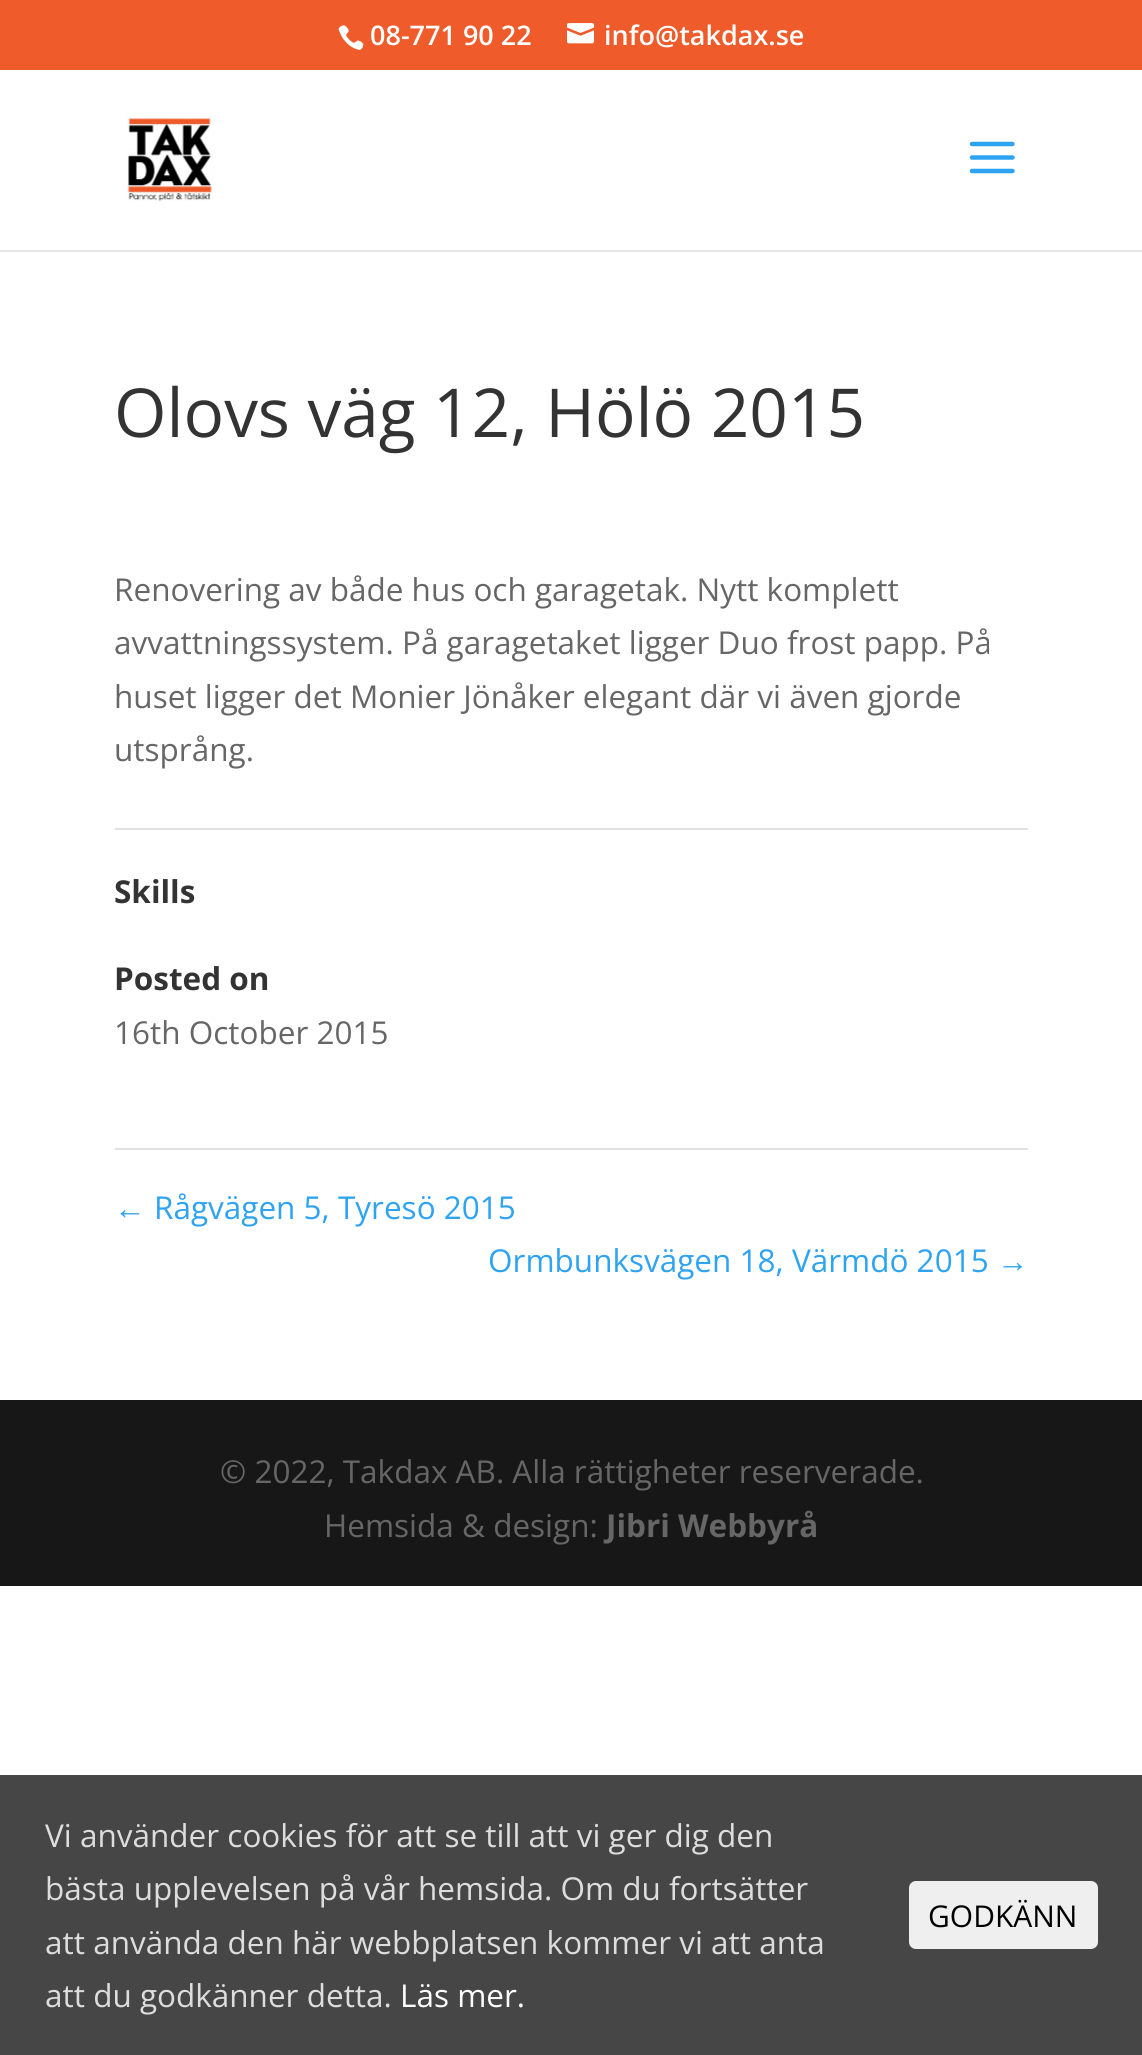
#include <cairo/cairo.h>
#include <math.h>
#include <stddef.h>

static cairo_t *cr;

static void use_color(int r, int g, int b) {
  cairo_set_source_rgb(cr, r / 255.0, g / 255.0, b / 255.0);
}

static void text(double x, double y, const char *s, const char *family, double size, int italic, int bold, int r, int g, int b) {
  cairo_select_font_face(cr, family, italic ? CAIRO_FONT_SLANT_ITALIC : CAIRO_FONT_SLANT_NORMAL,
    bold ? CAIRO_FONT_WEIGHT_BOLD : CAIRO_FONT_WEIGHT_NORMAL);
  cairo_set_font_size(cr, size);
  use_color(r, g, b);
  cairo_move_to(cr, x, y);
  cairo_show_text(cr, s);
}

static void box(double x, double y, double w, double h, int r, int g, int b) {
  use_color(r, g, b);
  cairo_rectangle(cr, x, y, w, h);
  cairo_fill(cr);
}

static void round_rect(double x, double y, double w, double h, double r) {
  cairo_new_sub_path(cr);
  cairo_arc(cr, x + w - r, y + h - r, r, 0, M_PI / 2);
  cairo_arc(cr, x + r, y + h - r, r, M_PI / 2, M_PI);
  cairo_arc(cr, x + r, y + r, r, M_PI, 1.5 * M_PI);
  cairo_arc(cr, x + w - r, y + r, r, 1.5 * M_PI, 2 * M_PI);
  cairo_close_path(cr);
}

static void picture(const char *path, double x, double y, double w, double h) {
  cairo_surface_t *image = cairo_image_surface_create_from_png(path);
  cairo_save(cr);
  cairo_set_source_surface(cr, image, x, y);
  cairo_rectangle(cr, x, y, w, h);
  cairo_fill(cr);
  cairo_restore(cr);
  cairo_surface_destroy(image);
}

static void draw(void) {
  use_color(255, 255, 255);
  cairo_paint(cr);
  box(0, 0, 1142, 70, 239, 91, 42);
  picture("img_01.png", 338, 25, 26, 26);
  picture("img_02.png", 567, 23, 27, 21);
  box(0, 250, 1142, 2, 230, 230, 230);
  picture("img_03.png", 126, 116, 89, 86);
  picture("img_04.png", 969, 141, 46, 33);
  box(115, 828, 913, 2, 226, 226, 226);
  box(115, 1148, 913, 2, 226, 226, 226);
  box(0, 1400, 1142, 186, 23, 23, 23);
  box(0, 1775, 1142, 280, 70, 70, 70);
  use_color(239, 239, 239);
  round_rect(909, 1881, 189, 68, 7);
  cairo_fill(cr);
  text(370, 45, "08-771 90 22", "Open Sans SemiBold", 27, 0, 0, 255, 255, 255);
  text(604, 45, "info@takdax.se", "Open Sans SemiBold", 27, 0, 0, 255, 255, 255);
  text(114, 437, "Olovs väg 12, Hölö 2015", "Open Sans", 67.5, 0, 0, 51, 51, 51);
  text(114, 601, "Renovering av både hus och garagetak. Nytt komplett", "Open Sans", 31.5, 0, 0, 102, 102, 102);
  text(114, 654, "avvattningssystem. På garagetaket ligger Duo frost papp. På", "Open Sans", 31.5, 0, 0, 102, 102, 102);
  text(114, 708, "huset ligger det Monier Jönåker elegant där vi även gjorde", "Open Sans", 31.5, 0, 0, 102, 102, 102);
  text(114, 761, "utsprång.", "Open Sans", 31.5, 0, 0, 102, 102, 102);
  text(114, 903, "Skills", "Open Sans", 31.5, 0, 1, 51, 51, 51);
  text(114, 990, "Posted on", "Open Sans", 31.5, 0, 1, 51, 51, 51);
  text(114, 1044, "16th October 2015", "Open Sans", 31.5, 0, 0, 102, 102, 102);
  text(114, 1219, "←", "Liberation Sans", 31.5, 0, 0, 46, 163, 242);
  text(154, 1219, "Rågvägen 5, Tyresö 2015", "Open Sans", 31.5, 0, 0, 46, 163, 242);
  text(488, 1272, "Ormbunksvägen 18, Värmdö 2015", "Open Sans", 31.5, 0, 0, 46, 163, 242);
  text(997, 1272, "→", "Liberation Sans", 31.5, 0, 0, 46, 163, 242);
  text(220, 1483, "© 2022, Takdax AB. Alla rättigheter reserverade.", "Open Sans", 31.5, 0, 0, 102, 102, 102);
  text(324, 1537, "Hemsida & design:", "Open Sans", 31.5, 0, 0, 102, 102, 102);
  text(606, 1537, "Jibri Webbyrå", "Open Sans", 31.5, 0, 1, 102, 102, 102);
  text(45, 1847, "Vi använder cookies för att se till att vi ger dig den", "Open Sans", 31.5, 0, 0, 221, 221, 221);
  text(45, 1900, "bästa upplevelsen på vår hemsida. Om du fortsätter", "Open Sans", 31.5, 0, 0, 221, 221, 221);
  text(45, 1954, "att använda den här webbplatsen kommer vi att anta", "Open Sans", 31.5, 0, 0, 221, 221, 221);
  text(45, 2007, "att du godkänner detta.", "Open Sans", 31.5, 0, 0, 221, 221, 221);
  text(400, 2007, "Läs mer.", "Open Sans", 31.5, 0, 0, 255, 255, 255);
  text(928, 1927, "GODKÄNN", "Open Sans", 30, 0, 0, 0, 0, 0);
}

int main(void) {
  cairo_surface_t *surface = cairo_image_surface_create(CAIRO_FORMAT_RGB24, 1142, 2055);
  cr = cairo_create(surface);
  cairo_font_options_t *options = cairo_font_options_create();
  cairo_font_options_set_hint_metrics(options, CAIRO_HINT_METRICS_OFF);
  cairo_font_options_set_hint_style(options, CAIRO_HINT_STYLE_NONE);
  cairo_set_font_options(cr, options);
  cairo_set_miter_limit(cr, 4);
  draw();
  cairo_surface_write_to_png(surface, "out.png");
  cairo_font_options_destroy(options);
  cairo_destroy(cr);
  cairo_surface_destroy(surface);
  return 0;
}
